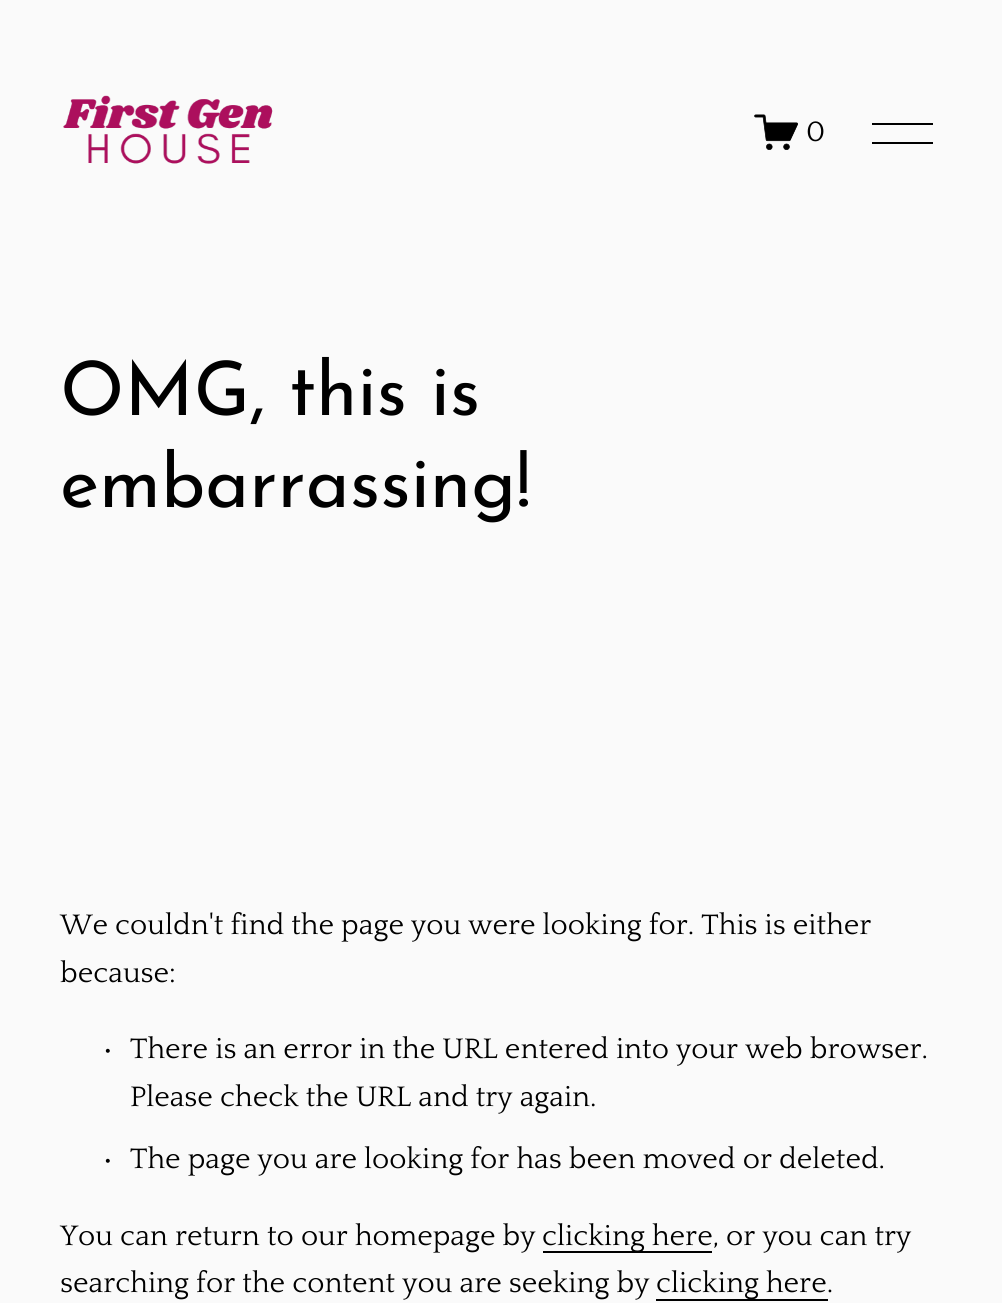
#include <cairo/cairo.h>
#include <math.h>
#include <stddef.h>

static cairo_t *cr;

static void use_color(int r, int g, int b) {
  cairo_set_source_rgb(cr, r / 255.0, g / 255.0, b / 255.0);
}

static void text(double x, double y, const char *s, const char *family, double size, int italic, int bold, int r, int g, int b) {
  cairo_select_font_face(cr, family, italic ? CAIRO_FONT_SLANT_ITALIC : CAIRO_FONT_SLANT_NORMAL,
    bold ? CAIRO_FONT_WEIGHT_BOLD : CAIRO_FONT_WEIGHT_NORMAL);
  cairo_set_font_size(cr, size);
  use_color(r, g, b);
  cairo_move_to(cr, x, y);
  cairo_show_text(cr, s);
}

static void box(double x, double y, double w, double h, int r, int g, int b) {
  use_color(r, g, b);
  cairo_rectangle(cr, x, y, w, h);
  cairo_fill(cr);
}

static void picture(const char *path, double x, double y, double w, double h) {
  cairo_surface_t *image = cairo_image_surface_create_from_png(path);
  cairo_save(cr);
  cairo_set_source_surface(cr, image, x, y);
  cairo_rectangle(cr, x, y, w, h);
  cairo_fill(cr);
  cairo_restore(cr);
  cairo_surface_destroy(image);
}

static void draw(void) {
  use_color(250, 250, 250);
  cairo_paint(cr);
  picture("img_01.png", 63, 95, 210, 69);
  picture("img_02.png", 754, 114, 44, 36);
  box(872, 123, 61, 2, 0, 0, 0);
  box(872, 142, 61, 2, 0, 0, 0);
  box(543, 1251, 169, 2, 0, 0, 0);
  box(656, 1299, 172, 2, 0, 0, 0);
  text(806, 141, "0", "Quattrocento", 29.55, 0, 0, 0, 0, 0);
  text(60, 415, "OMG, this is", "Josefin Sans", 75, 0, 0, 0, 0, 0);
  text(60, 507, "embarrassing!", "Josefin Sans", 75, 0, 0, 0, 0, 0);
  text(60, 934, "We couldn't find the page you were looking for. This is either", "Quattrocento", 29.55, 0, 0, 0, 0, 0);
  text(60, 982, "because:", "Quattrocento", 29.55, 0, 0, 0, 0, 0);
  text(103, 1058, "•", "Quattrocento", 29.55, 0, 0, 0, 0, 0);
  text(130, 1058, "There is an error in the URL entered into your web browser.", "Quattrocento", 29.55, 0, 0, 0, 0, 0);
  text(130, 1106, "Please check the URL and try again.", "Quattrocento", 29.55, 0, 0, 0, 0, 0);
  text(103, 1168, "•", "Quattrocento", 29.55, 0, 0, 0, 0, 0);
  text(130, 1168, "The page you are looking for has been moved or deleted.", "Quattrocento", 29.55, 0, 0, 0, 0, 0);
  text(60, 1245, "You can return to our homepage by", "Quattrocento", 29.55, 0, 0, 0, 0, 0);
  text(542, 1245, "clicking here, or you can try", "Quattrocento", 29.55, 0, 0, 0, 0, 0);
  text(60, 1292, "searching for the content you are seeking by", "Quattrocento", 29.55, 0, 0, 0, 0, 0);
  text(656, 1292, "clicking here.", "Quattrocento", 29.55, 0, 0, 0, 0, 0);
}

int main(void) {
  cairo_surface_t *surface = cairo_image_surface_create(CAIRO_FORMAT_RGB24, 1002, 1303);
  cr = cairo_create(surface);
  cairo_font_options_t *options = cairo_font_options_create();
  cairo_font_options_set_hint_metrics(options, CAIRO_HINT_METRICS_OFF);
  cairo_font_options_set_hint_style(options, CAIRO_HINT_STYLE_NONE);
  cairo_set_font_options(cr, options);
  cairo_set_miter_limit(cr, 4);
  draw();
  cairo_surface_write_to_png(surface, "out.png");
  cairo_font_options_destroy(options);
  cairo_destroy(cr);
  cairo_surface_destroy(surface);
  return 0;
}
